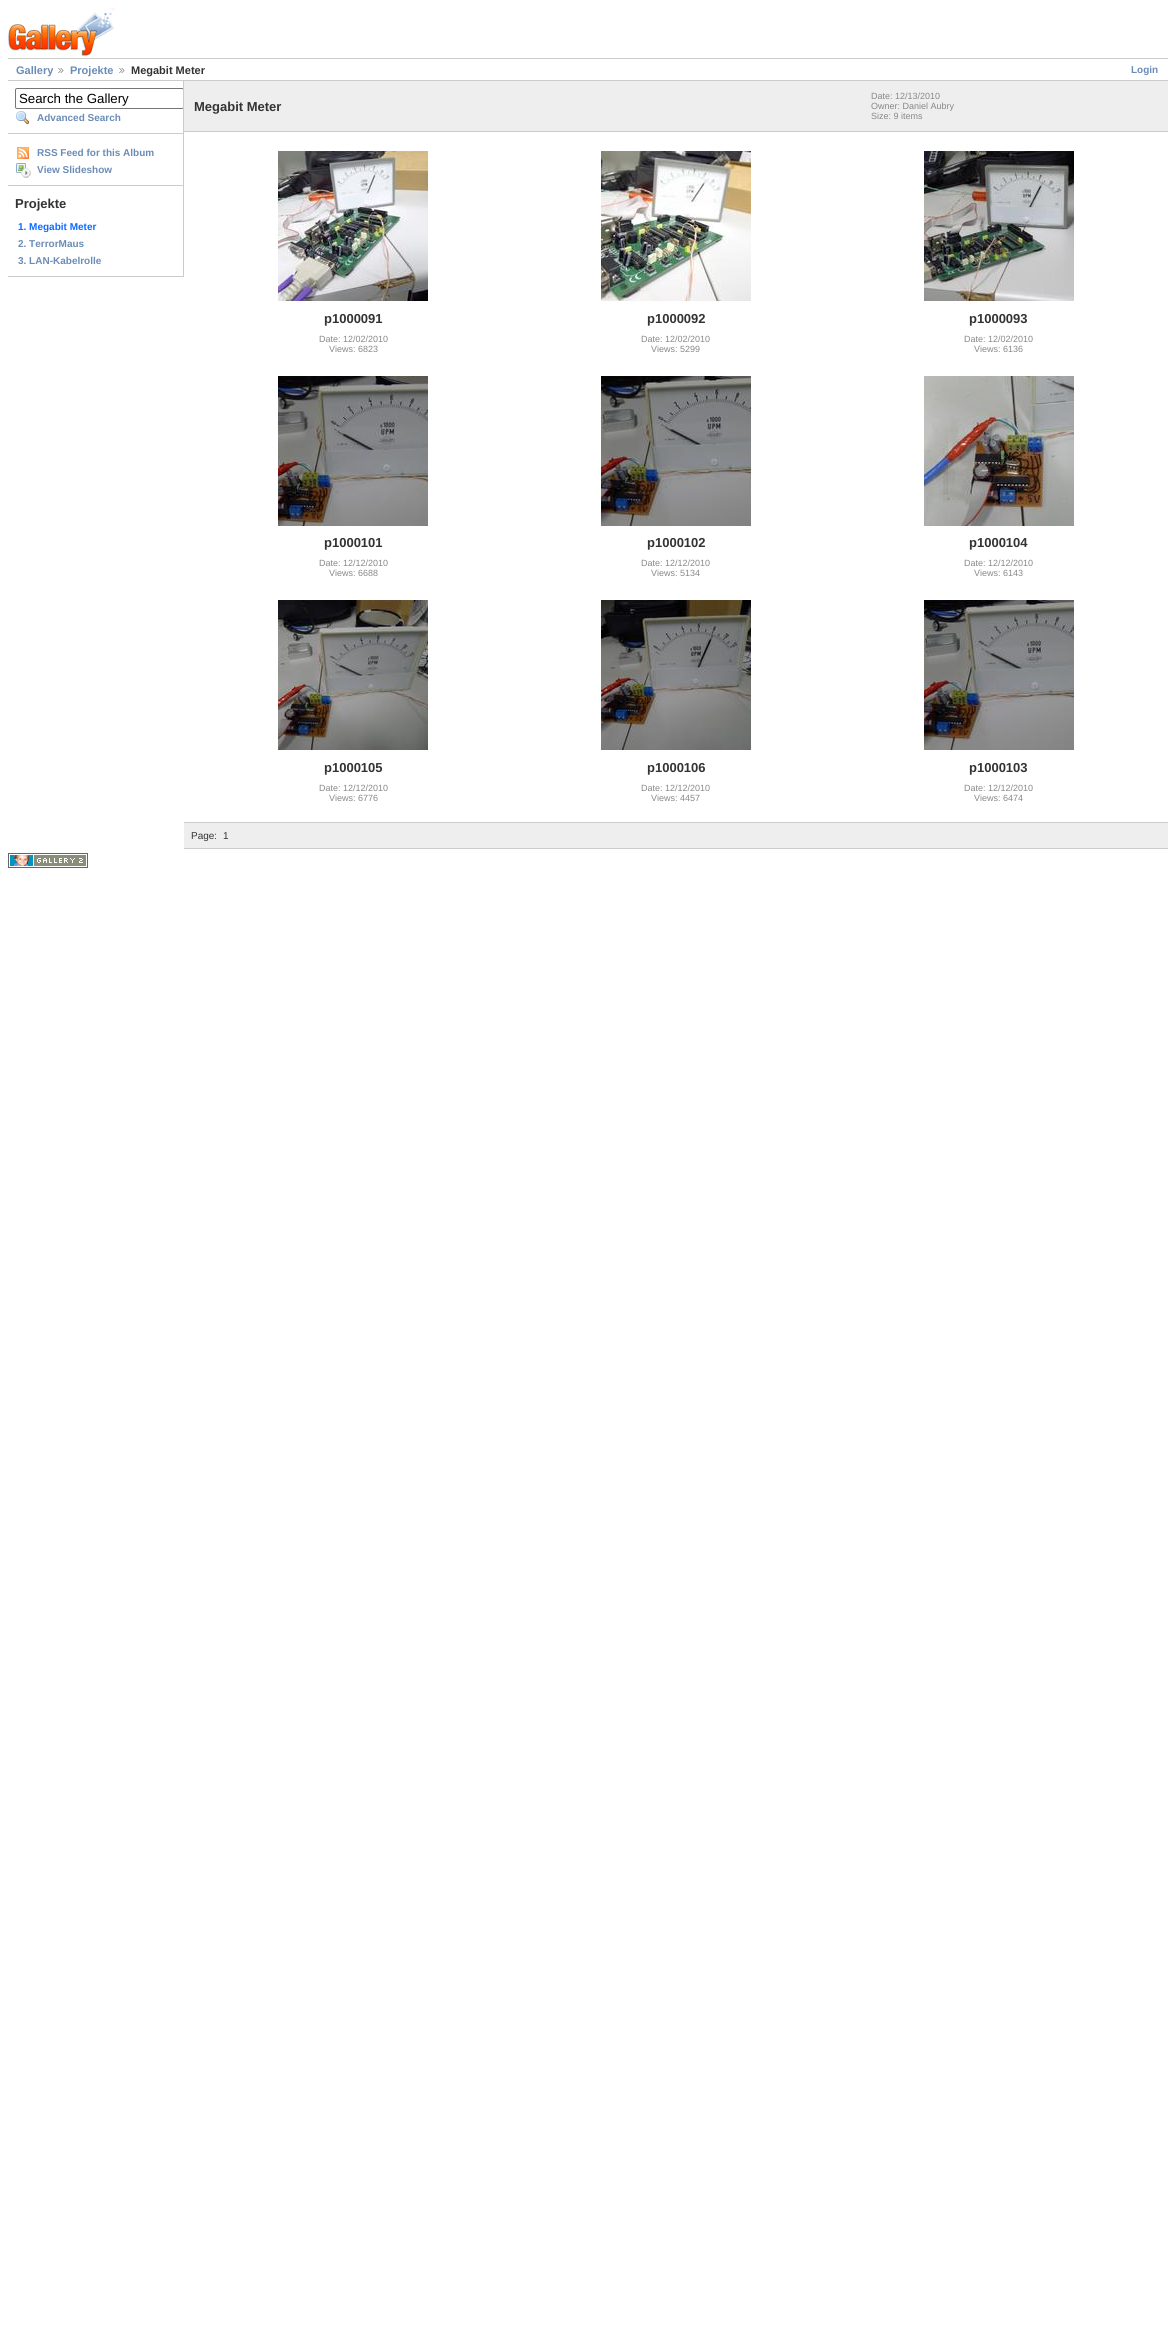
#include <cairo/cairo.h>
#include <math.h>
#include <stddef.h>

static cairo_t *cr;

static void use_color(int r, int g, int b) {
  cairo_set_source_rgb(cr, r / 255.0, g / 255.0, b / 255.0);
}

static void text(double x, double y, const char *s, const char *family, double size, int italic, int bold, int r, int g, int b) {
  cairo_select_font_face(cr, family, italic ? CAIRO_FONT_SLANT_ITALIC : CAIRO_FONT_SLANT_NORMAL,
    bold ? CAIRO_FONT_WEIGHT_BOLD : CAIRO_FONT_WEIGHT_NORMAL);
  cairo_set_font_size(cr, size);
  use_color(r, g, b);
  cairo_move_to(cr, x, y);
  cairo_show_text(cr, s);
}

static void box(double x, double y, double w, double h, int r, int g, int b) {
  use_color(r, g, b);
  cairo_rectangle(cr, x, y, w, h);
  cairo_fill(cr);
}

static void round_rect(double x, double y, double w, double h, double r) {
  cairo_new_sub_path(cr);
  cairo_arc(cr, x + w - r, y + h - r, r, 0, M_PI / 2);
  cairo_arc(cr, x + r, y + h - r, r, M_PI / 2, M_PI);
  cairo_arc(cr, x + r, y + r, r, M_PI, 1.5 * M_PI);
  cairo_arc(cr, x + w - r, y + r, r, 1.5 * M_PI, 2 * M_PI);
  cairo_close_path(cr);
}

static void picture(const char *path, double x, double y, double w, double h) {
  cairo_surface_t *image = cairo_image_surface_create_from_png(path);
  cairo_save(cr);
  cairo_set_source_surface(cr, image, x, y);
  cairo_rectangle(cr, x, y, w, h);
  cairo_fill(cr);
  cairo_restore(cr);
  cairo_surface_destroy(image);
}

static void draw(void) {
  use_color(255, 255, 255);
  cairo_paint(cr);
  picture("img_01.png", 8, 8, 107, 48);
  box(8, 58, 1160, 1, 204, 204, 204);
  box(8, 80, 1160, 1, 204, 204, 204);
  picture("img_02.png", 58, 68, 6, 5);
  picture("img_02.png", 119, 68, 6, 5);
  box(183, 81, 1, 196, 204, 204, 204);
  box(8, 133, 175, 1, 204, 204, 204);
  cairo_save(cr);
  cairo_rectangle(cr, 8, 81, 175, 196);
  cairo_clip(cr);
  round_rect(15.5, 88.5, 168, 20, 1.5);
  use_color(118, 118, 118);
  cairo_set_line_width(cr, 1);
  cairo_stroke(cr);
  cairo_restore(cr);
  picture("img_03.png", 16, 111, 13, 14);
  box(8, 185, 175, 1, 204, 204, 204);
  picture("img_04.png", 17, 147, 12, 12);
  picture("img_05.png", 16, 163, 15, 15);
  box(8, 276, 175, 1, 204, 204, 204);
  box(184, 81, 984, 50, 238, 238, 238);
  box(184, 131, 984, 1, 204, 204, 204);
  box(184, 822, 984, 1, 204, 204, 204);
  picture("img_06.png", 278, 151, 150, 150);
  picture("img_07.png", 601, 151, 150, 150);
  picture("img_08.png", 924, 151, 150, 150);
  picture("img_09.png", 278, 376, 150, 150);
  picture("img_10.png", 601, 376, 150, 150);
  picture("img_11.png", 924, 376, 150, 150);
  picture("img_12.png", 278, 600, 150, 150);
  picture("img_13.png", 601, 600, 150, 150);
  picture("img_14.png", 924, 600, 150, 150);
  box(184, 823, 984, 25, 238, 238, 238);
  box(184, 848, 984, 1, 204, 204, 204);
  picture("img_15.png", 8, 853, 80, 15);
  text(16, 74, "Gallery", "Liberation Sans", 11, 0, 1, 107, 140, 183);
  text(70, 74, "Projekte", "Liberation Sans", 11, 0, 1, 107, 140, 183);
  text(131, 74, "Megabit Meter", "Liberation Sans", 11, 0, 1, 51, 51, 51);
  text(1131, 73, "Login", "Liberation Sans", 10, 0, 1, 107, 140, 183);
  text(19, 103, "Search the Gallery", "Liberation Sans", 13.25, 0, 0, 0, 0, 0);
  text(37, 121, "Advanced Search", "Liberation Sans", 10, 0, 1, 107, 140, 183);
  text(37, 156, "RSS Feed for this Album", "Liberation Sans", 10, 0, 1, 107, 140, 183);
  text(37, 173, "View Slideshow", "Liberation Sans", 10, 0, 1, 107, 140, 183);
  text(15, 208, "Projekte", "Liberation Sans", 13, 0, 1, 51, 51, 51);
  text(18, 230, "1. Megabit Meter", "Liberation Sans", 10, 0, 1, 11, 108, 255);
  text(18, 247, "2. TerrorMaus", "Liberation Sans", 10, 0, 1, 107, 140, 183);
  text(18, 264, "3. LAN-Kabelrolle", "Liberation Sans", 10, 0, 1, 107, 140, 183);
  text(194, 111, "Megabit Meter", "Liberation Sans", 13, 0, 1, 51, 51, 51);
  text(871, 99, "Date: 12/13/2010", "Liberation Sans", 9, 0, 0, 136, 136, 136);
  text(871, 109, "Owner: Daniel Aubry", "Liberation Sans", 9, 0, 0, 136, 136, 136);
  text(871, 119, "Size: 9 items", "Liberation Sans", 9, 0, 0, 136, 136, 136);
  text(324, 323, "p1000091", "Liberation Sans", 13, 0, 1, 51, 51, 51);
  text(319, 342, "Date: 12/02/2010", "Liberation Sans", 9, 0, 0, 136, 136, 136);
  text(329, 352, "Views: 6823", "Liberation Sans", 9, 0, 0, 136, 136, 136);
  text(647, 323, "p1000092", "Liberation Sans", 13, 0, 1, 51, 51, 51);
  text(641, 342, "Date: 12/02/2010", "Liberation Sans", 9, 0, 0, 136, 136, 136);
  text(651, 352, "Views: 5299", "Liberation Sans", 9, 0, 0, 136, 136, 136);
  text(969, 323, "p1000093", "Liberation Sans", 13, 0, 1, 51, 51, 51);
  text(964, 342, "Date: 12/02/2010", "Liberation Sans", 9, 0, 0, 136, 136, 136);
  text(974, 352, "Views: 6136", "Liberation Sans", 9, 0, 0, 136, 136, 136);
  text(324, 547, "p1000101", "Liberation Sans", 13, 0, 1, 51, 51, 51);
  text(319, 566, "Date: 12/12/2010", "Liberation Sans", 9, 0, 0, 136, 136, 136);
  text(329, 576, "Views: 6688", "Liberation Sans", 9, 0, 0, 136, 136, 136);
  text(647, 547, "p1000102", "Liberation Sans", 13, 0, 1, 51, 51, 51);
  text(641, 566, "Date: 12/12/2010", "Liberation Sans", 9, 0, 0, 136, 136, 136);
  text(651, 576, "Views: 5134", "Liberation Sans", 9, 0, 0, 136, 136, 136);
  text(969, 547, "p1000104", "Liberation Sans", 13, 0, 1, 51, 51, 51);
  text(964, 566, "Date: 12/12/2010", "Liberation Sans", 9, 0, 0, 136, 136, 136);
  text(974, 576, "Views: 6143", "Liberation Sans", 9, 0, 0, 136, 136, 136);
  text(324, 772, "p1000105", "Liberation Sans", 13, 0, 1, 51, 51, 51);
  text(319, 791, "Date: 12/12/2010", "Liberation Sans", 9, 0, 0, 136, 136, 136);
  text(329, 801, "Views: 6776", "Liberation Sans", 9, 0, 0, 136, 136, 136);
  text(647, 772, "p1000106", "Liberation Sans", 13, 0, 1, 51, 51, 51);
  text(641, 791, "Date: 12/12/2010", "Liberation Sans", 9, 0, 0, 136, 136, 136);
  text(651, 801, "Views: 4457", "Liberation Sans", 9, 0, 0, 136, 136, 136);
  text(969, 772, "p1000103", "Liberation Sans", 13, 0, 1, 51, 51, 51);
  text(964, 791, "Date: 12/12/2010", "Liberation Sans", 9, 0, 0, 136, 136, 136);
  text(974, 801, "Views: 6474", "Liberation Sans", 9, 0, 0, 136, 136, 136);
  text(191, 839, "Page:", "Liberation Sans", 10, 0, 0, 51, 51, 51);
  text(223, 839, "1", "Liberation Sans", 10, 0, 0, 51, 51, 51);
}

int main(void) {
  cairo_surface_t *surface = cairo_image_surface_create(CAIRO_FORMAT_RGB24, 1176, 2344);
  cr = cairo_create(surface);
  cairo_font_options_t *options = cairo_font_options_create();
  cairo_font_options_set_hint_metrics(options, CAIRO_HINT_METRICS_OFF);
  cairo_font_options_set_hint_style(options, CAIRO_HINT_STYLE_NONE);
  cairo_set_font_options(cr, options);
  cairo_set_miter_limit(cr, 4);
  draw();
  cairo_surface_write_to_png(surface, "out.png");
  cairo_font_options_destroy(options);
  cairo_destroy(cr);
  cairo_surface_destroy(surface);
  return 0;
}
